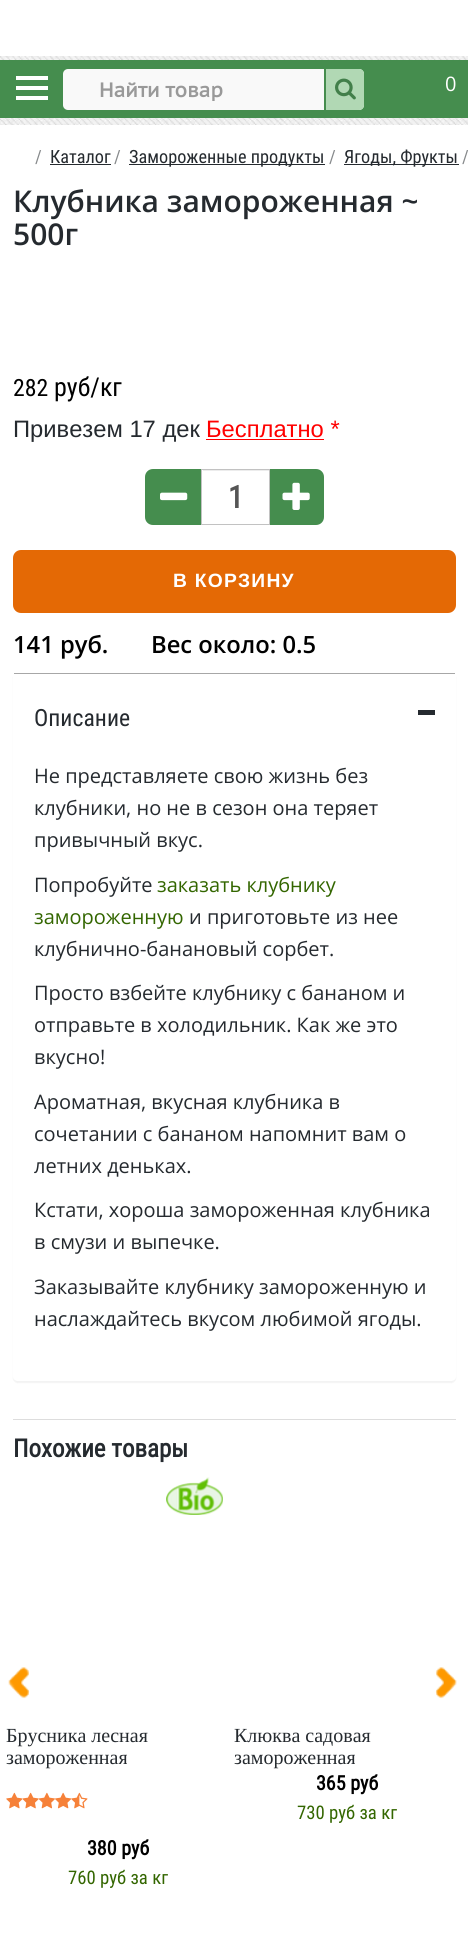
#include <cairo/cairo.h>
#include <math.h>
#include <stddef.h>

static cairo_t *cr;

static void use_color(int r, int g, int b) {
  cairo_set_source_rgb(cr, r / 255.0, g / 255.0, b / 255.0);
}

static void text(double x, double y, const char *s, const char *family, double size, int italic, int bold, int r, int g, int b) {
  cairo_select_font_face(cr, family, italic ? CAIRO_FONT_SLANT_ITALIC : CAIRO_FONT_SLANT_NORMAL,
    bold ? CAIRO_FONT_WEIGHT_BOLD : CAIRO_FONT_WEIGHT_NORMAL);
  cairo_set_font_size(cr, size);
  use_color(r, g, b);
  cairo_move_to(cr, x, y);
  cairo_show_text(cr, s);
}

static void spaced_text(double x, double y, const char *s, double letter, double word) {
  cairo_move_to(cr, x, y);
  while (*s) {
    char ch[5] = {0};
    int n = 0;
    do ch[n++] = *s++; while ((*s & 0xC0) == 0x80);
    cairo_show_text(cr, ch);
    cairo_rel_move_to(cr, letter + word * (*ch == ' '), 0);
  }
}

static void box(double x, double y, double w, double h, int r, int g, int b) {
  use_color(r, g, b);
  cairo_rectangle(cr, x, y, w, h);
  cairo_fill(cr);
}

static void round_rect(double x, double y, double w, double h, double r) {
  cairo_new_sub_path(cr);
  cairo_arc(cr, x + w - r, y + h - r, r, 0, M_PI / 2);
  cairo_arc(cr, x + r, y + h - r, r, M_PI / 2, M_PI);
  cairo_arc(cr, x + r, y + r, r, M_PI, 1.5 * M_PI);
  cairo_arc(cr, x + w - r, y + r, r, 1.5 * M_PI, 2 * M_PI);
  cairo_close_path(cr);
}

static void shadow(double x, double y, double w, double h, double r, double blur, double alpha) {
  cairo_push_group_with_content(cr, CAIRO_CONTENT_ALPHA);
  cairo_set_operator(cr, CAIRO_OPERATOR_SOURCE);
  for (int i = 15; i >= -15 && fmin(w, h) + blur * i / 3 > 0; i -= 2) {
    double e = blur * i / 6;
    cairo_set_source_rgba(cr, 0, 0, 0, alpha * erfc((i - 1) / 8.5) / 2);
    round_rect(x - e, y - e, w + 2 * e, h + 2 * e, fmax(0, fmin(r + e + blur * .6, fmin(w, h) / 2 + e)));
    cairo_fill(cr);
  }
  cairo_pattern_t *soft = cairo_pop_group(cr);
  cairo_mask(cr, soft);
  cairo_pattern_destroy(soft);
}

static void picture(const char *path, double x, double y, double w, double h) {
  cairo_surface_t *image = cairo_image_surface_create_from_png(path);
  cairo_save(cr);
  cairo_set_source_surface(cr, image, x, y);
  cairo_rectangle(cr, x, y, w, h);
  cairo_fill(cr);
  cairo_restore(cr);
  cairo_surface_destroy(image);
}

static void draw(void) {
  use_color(255, 255, 255);
  cairo_paint(cr);
  picture("img_01.png", 0, 56, 468, 69);
  box(0, 60, 468, 58, 69, 141, 78);
  box(16, 76, 32, 4, 255, 255, 255);
  box(16, 86, 32, 4, 255, 255, 255);
  box(16, 96, 32, 4, 255, 255, 255);
  use_color(249, 249, 249);
  round_rect(63, 69, 301, 41, 5);
  cairo_fill(cr);
  use_color(177, 216, 180);
  cairo_new_path(cr);
  cairo_move_to(cr, 323, 69);
  cairo_line_to(cr, 359, 69);
  cairo_curve_to(cr, 362, 69, 364, 71, 364, 74);
  cairo_line_to(cr, 364, 105);
  cairo_curve_to(cr, 364, 108, 362, 110, 359, 110);
  cairo_line_to(cr, 323, 110);
  cairo_close_path(cr);
  cairo_fill(cr);
  use_color(249, 249, 249);
  cairo_new_path(cr);
  cairo_move_to(cr, 86, 69);
  cairo_line_to(cr, 324, 69);
  cairo_line_to(cr, 324, 110);
  cairo_line_to(cr, 86, 110);
  cairo_curve_to(cr, 83, 110, 81, 108, 81, 105);
  cairo_line_to(cr, 81, 74);
  cairo_curve_to(cr, 81, 71, 83, 69, 86, 69);
  cairo_close_path(cr);
  cairo_fill(cr);
  box(324, 69, 2, 41, 69, 141, 78);
  picture("img_02.png", 335, 78, 21, 22);
  box(50, 164, 61, 1, 37, 42, 47);
  box(129, 164, 196, 1, 37, 42, 47);
  box(344, 164, 115, 1, 37, 42, 47);
  box(206, 439, 118, 1, 255, 0, 0);
  use_color(69, 141, 78);
  cairo_new_path(cr);
  cairo_move_to(cr, 153, 469);
  cairo_line_to(cr, 201, 469);
  cairo_line_to(cr, 201, 525);
  cairo_line_to(cr, 153, 525);
  cairo_curve_to(cr, 148.5, 525, 145, 521.5, 145, 517);
  cairo_line_to(cr, 145, 477);
  cairo_curve_to(cr, 145, 472.5, 148.5, 469, 153, 469);
  cairo_close_path(cr);
  cairo_fill(cr);
  picture("img_03.png", 160, 492, 28, 9);
  cairo_new_path(cr);
  cairo_move_to(cr, 268, 469);
  cairo_line_to(cr, 316, 469);
  cairo_curve_to(cr, 320.5, 469, 324, 472.5, 324, 477);
  cairo_line_to(cr, 324, 517);
  cairo_curve_to(cr, 324, 521.5, 320.5, 525, 316, 525);
  cairo_line_to(cr, 268, 525);
  cairo_close_path(cr);
  cairo_fill(cr);
  box(268, 470, 1, 54, 255, 255, 255);
  box(203, 470, 66, 1, 236, 236, 236);
  cairo_rectangle(cr, 201.5, 469.5, 68, 55);
  use_color(194, 194, 194);
  cairo_set_line_width(cr, 1);
  cairo_stroke(cr);
  picture("img_04.png", 282, 482, 28, 28);
  use_color(228, 105, 5);
  round_rect(13, 550, 443, 63, 8);
  cairo_fill(cr);
  cairo_save(cr);
  cairo_set_fill_rule(cr, CAIRO_FILL_RULE_EVEN_ODD);
  cairo_new_path(cr);
  cairo_move_to(cr, 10, 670);
  cairo_line_to(cr, 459, 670);
  cairo_line_to(cr, 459, 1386);
  cairo_line_to(cr, 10, 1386);
  cairo_close_path(cr);
  cairo_move_to(cr, 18, 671);
  cairo_line_to(cr, 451, 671);
  cairo_curve_to(cr, 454, 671, 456, 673, 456, 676);
  cairo_line_to(cr, 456, 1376);
  cairo_curve_to(cr, 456, 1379, 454, 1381, 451, 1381);
  cairo_line_to(cr, 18, 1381);
  cairo_curve_to(cr, 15, 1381, 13, 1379, 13, 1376);
  cairo_line_to(cr, 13, 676);
  cairo_curve_to(cr, 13, 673, 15, 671, 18, 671);
  cairo_close_path(cr);
  cairo_clip(cr);
  use_color(0, 0, 0);
  shadow(13, 673, 443, 710, 5, 0.5, 0.05);
  cairo_restore(cr);
  box(14, 673, 441, 1, 167, 167, 167);
  box(418, 710, 17, 5, 37, 42, 47);
  box(13, 1419, 443, 1, 221, 221, 221);
  picture("img_05.png", 8, 1667, 22, 32);
  picture("img_06.png", 435, 1667, 22, 32);
  picture("img_07.png", 166, 1477, 57, 38);
  picture("img_08.png", 6, 1792, 17, 17);
  picture("img_09.png", 22, 1792, 17, 17);
  picture("img_10.png", 38, 1792, 17, 17);
  picture("img_11.png", 55, 1792, 17, 17);
  picture("img_12.png", 71, 1792, 17, 17);
  text(99, 97, "Найти товар", "PT Sans Caption", 20, 0, 1, 153, 153, 153);
  text(445, 91, "0", "Open Sans", 20, 0, 0, 255, 255, 255);
  text(35, 163, "/", "Roboto Condensed", 18.25, 0, 0, 135, 138, 140);
  text(50, 163, "Каталог", "Roboto Condensed", 18.25, 0, 0, 37, 42, 47);
  text(114, 163, "/", "Roboto Condensed", 18.25, 0, 0, 135, 138, 140);
  text(129, 163, "Замороженные продукты", "Roboto Condensed", 18.25, 0, 0, 37, 42, 47);
  text(329, 163, "/", "Roboto Condensed", 18.25, 0, 0, 135, 138, 140);
  text(344, 163, "Ягоды, Фрукты", "Roboto Condensed", 18.25, 0, 0, 37, 42, 47);
  text(462, 163, "/", "Roboto Condensed", 18.25, 0, 0, 135, 138, 140);
  text(13, 212, "Клубника замороженная ~", "Open Sans SemiBold", 30, 0, 0, 37, 42, 47);
  text(13, 245, "500г", "Open Sans SemiBold", 30, 0, 0, 37, 42, 47);
  text(13, 396, "282", "Roboto Condensed", 23.75, 0, 0, 0, 0, 0);
  text(54, 396, "руб/кг", "Roboto Condensed", 26, 0, 0, 0, 0, 0);
  text(13, 437, "Привезем 17 дек", "Liberation Sans", 23.75, 0, 0, 37, 42, 47);
  text(206, 437, "Бесплатно *", "Liberation Sans", 23.75, 0, 0, 255, 0, 0);
  text(228, 508, "1", "Roboto Condensed", 31, 0, 1, 85, 85, 85);
  cairo_select_font_face(cr, "Liberation Sans", CAIRO_FONT_SLANT_NORMAL, CAIRO_FONT_WEIGHT_BOLD);
  cairo_set_font_size(cr, 19.25);
  use_color(255, 255, 255);
  spaced_text(173, 587, "В КОРЗИНУ", 1.25, 0);
  text(13, 653, "141 руб.", "Open Sans SemiBold", 23.75, 0, 0, 0, 0, 0);
  text(151, 653, "Вес около: 0.5", "Open Sans SemiBold", 23.75, 0, 0, 0, 0, 0);
  text(34, 726, "Описание", "Roboto Condensed", 23.75, 0, 0, 37, 42, 47);
  text(34, 783, "Не представляете свою жизнь без", "Open Sans", 20, 0, 0, 37, 42, 47);
  text(34, 815, "клубники, но не в сезон она теряет", "Open Sans", 20, 0, 0, 37, 42, 47);
  text(34, 847, "привычный вкус.", "Open Sans", 20, 0, 0, 37, 42, 47);
  text(34, 892, "Попробуйте", "Open Sans", 20, 0, 0, 37, 42, 47);
  text(157, 892, "заказать клубнику", "Open Sans", 20, 0, 0, 51, 102, 0);
  text(34, 924, "замороженную", "Open Sans", 20, 0, 0, 51, 102, 0);
  text(189, 924, "и приготовьте из нее", "Open Sans", 20, 0, 0, 37, 42, 47);
  text(34, 956, "клубнично-банановый сорбет.", "Open Sans", 20, 0, 0, 37, 42, 47);
  text(34, 1000, "Просто взбейте клубнику с бананом и", "Open Sans", 20, 0, 0, 37, 42, 47);
  text(34, 1032, "отправьте в холодильник. Как же это", "Open Sans", 20, 0, 0, 37, 42, 47);
  text(34, 1064, "вкусно!", "Open Sans", 20, 0, 0, 37, 42, 47);
  text(34, 1109, "Ароматная, вкусная клубника в", "Open Sans", 20, 0, 0, 37, 42, 47);
  text(34, 1141, "сочетании с бананом напомнит вам о", "Open Sans", 20, 0, 0, 37, 42, 47);
  text(34, 1173, "летних деньках.", "Open Sans", 20, 0, 0, 37, 42, 47);
  text(34, 1217, "Кстати, хороша замороженная клубника", "Open Sans", 20, 0, 0, 37, 42, 47);
  text(34, 1249, "в смузи и выпечке.", "Open Sans", 20, 0, 0, 37, 42, 47);
  text(34, 1294, "Заказывайте клубнику замороженную и", "Open Sans", 20, 0, 0, 37, 42, 47);
  text(34, 1326, "наслаждайтесь вкусом любимой ягоды.", "Open Sans", 20, 0, 0, 37, 42, 47);
  text(13, 1457, "Похожие товары", "Roboto Condensed", 25, 0, 1, 37, 42, 47);
  text(6, 1742, "Брусника лесная", "Liberation Serif", 20, 0, 0, 37, 42, 47);
  text(6, 1764, "замороженная", "Liberation Serif", 20, 0, 0, 37, 42, 47);
  text(87, 1855, "380 руб", "Roboto Condensed", 20, 0, 1, 0, 0, 0);
  text(68, 1884, "760 руб за кг", "Roboto Condensed", 18.75, 0, 0, 51, 102, 0);
  text(234, 1742, "Клюква садовая", "Liberation Serif", 20, 0, 0, 37, 42, 47);
  text(234, 1764, "замороженная", "Liberation Serif", 20, 0, 0, 37, 42, 47);
  text(316, 1790, "365 руб", "Roboto Condensed", 20, 0, 1, 0, 0, 0);
  text(297, 1819, "730 руб за кг", "Roboto Condensed", 18.75, 0, 0, 51, 102, 0);
}

int main(void) {
  cairo_surface_t *surface = cairo_image_surface_create(CAIRO_FORMAT_RGB24, 468, 1934);
  cr = cairo_create(surface);
  cairo_font_options_t *options = cairo_font_options_create();
  cairo_font_options_set_hint_metrics(options, CAIRO_HINT_METRICS_OFF);
  cairo_font_options_set_hint_style(options, CAIRO_HINT_STYLE_NONE);
  cairo_set_font_options(cr, options);
  cairo_set_miter_limit(cr, 4);
  draw();
  cairo_surface_write_to_png(surface, "out.png");
  cairo_font_options_destroy(options);
  cairo_destroy(cr);
  cairo_surface_destroy(surface);
  return 0;
}
